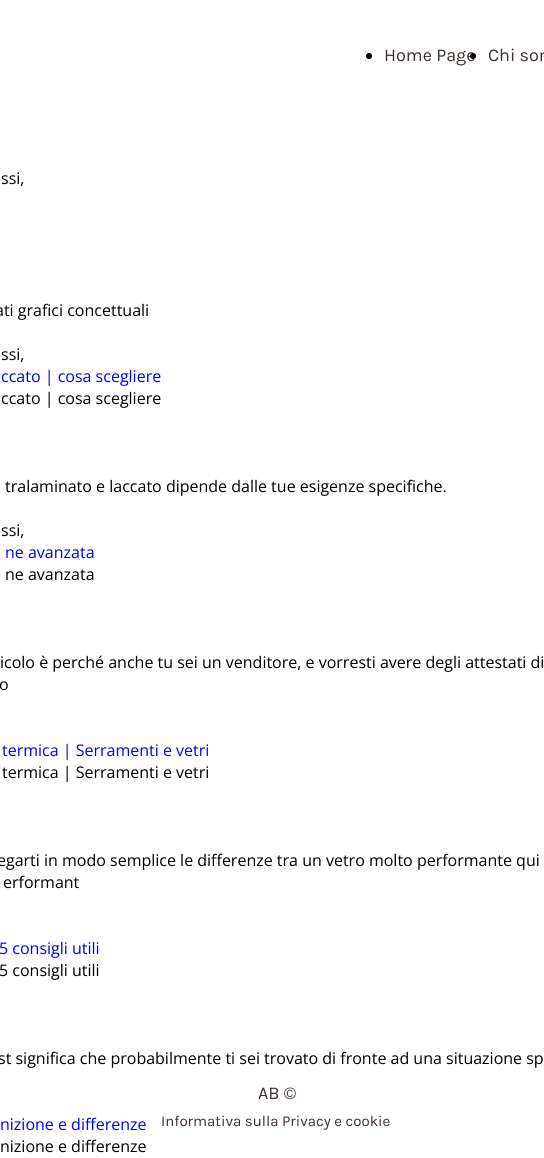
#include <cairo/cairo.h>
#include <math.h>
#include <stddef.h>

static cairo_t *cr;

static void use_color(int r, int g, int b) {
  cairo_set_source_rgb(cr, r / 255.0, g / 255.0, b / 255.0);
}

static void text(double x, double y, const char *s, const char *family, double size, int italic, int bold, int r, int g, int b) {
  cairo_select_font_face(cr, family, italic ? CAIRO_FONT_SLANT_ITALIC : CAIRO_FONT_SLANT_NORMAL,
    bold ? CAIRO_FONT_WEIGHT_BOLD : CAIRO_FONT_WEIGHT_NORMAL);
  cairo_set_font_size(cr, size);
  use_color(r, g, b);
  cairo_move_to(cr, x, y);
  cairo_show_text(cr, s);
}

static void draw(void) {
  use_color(255, 255, 255);
  cairo_paint(cr);
  use_color(0, 0, 0);
  cairo_arc(cr, 369, 56, 3, 0, 2 * M_PI);
  cairo_fill(cr);
  text(384, 61, "Home Page", "Karla", 18, 0, 0, 61, 48, 46);
  use_color(0, 0, 0);
  cairo_new_path(cr);
  cairo_arc(cr, 473, 56, 3, 0, 2 * M_PI);
  cairo_fill(cr);
  text(488, 61, "Chi son", "Karla", 18, 0, 0, 61, 48, 46);
  text(1, 184, "ssi,", "Open Sans", 16, 0, 0, 0, 0, 0);
  text(-5, 316, "ati grafici concettuali", "Open Sans", 16, 0, 0, 0, 0, 0);
  text(1, 360, "ssi,", "Open Sans", 16, 0, 0, 0, 0, 0);
  text(1, 382, "ccato | cosa scegliere", "Open Sans", 16, 0, 0, 0, 0, 255);
  text(1, 404, "ccato | cosa scegliere", "Open Sans", 16, 0, 0, 0, 0, 0);
  text(5, 492, "tralaminato e laccato dipende dalle tue esigenze specifiche.", "Open Sans", 16, 0, 0, 0, 0, 0);
  text(1, 536, "ssi,", "Open Sans", 16, 0, 0, 0, 0, 0);
  text(5, 558, "ne avanzata", "Open Sans", 16, 0, 0, 0, 0, 255);
  text(5, 580, "ne avanzata", "Open Sans", 16, 0, 0, 0, 0, 0);
  text(0, 668, "icolo è perché anche tu sei un venditore, e vorresti avere degli attestati di", "Open Sans", 16, 0, 0, 0, 0, 0);
  text(-1, 690, "o", "Open Sans", 16, 0, 0, 0, 0, 0);
  text(2, 756, "termica | Serramenti e vetri", "Open Sans", 16, 0, 0, 0, 0, 255);
  text(2, 778, "termica | Serramenti e vetri", "Open Sans", 16, 0, 0, 0, 0, 0);
  text(-3, 866, "egarti in modo semplice le differenze tra un vetro molto performante qui", "Open Sans", 16, 0, 0, 0, 0, 0);
  text(3, 888, "erformant", "Open Sans", 16, 0, 0, 0, 0, 0);
  text(-1, 954, "5 consigli utili", "Open Sans", 16, 0, 0, 0, 0, 255);
  text(-1, 976, "5 consigli utili", "Open Sans", 16, 0, 0, 0, 0, 0);
  text(-2, 1064, "st significa che probabilmente ti sei trovato di fronte ad una situazione sp", "Open Sans", 16, 0, 0, 0, 0, 0);
  text(0, 1130, "nizione e differenze", "Open Sans", 16, 0, 0, 0, 0, 255);
  text(0, 1152, "nizione e differenze", "Open Sans", 16, 0, 0, 0, 0, 0);
  text(258, 1099, "AB ©", "Karla", 18, 0, 0, 61, 48, 46);
  text(161, 1126, "Informativa sulla Privacy e cookie", "Karla", 15, 0, 0, 61, 48, 46);
}

int main(void) {
  cairo_surface_t *surface = cairo_image_surface_create(CAIRO_FORMAT_RGB24, 544, 1158);
  cr = cairo_create(surface);
  cairo_font_options_t *options = cairo_font_options_create();
  cairo_font_options_set_hint_metrics(options, CAIRO_HINT_METRICS_OFF);
  cairo_font_options_set_hint_style(options, CAIRO_HINT_STYLE_NONE);
  cairo_set_font_options(cr, options);
  cairo_set_miter_limit(cr, 4);
  draw();
  cairo_surface_write_to_png(surface, "out.png");
  cairo_font_options_destroy(options);
  cairo_destroy(cr);
  cairo_surface_destroy(surface);
  return 0;
}
